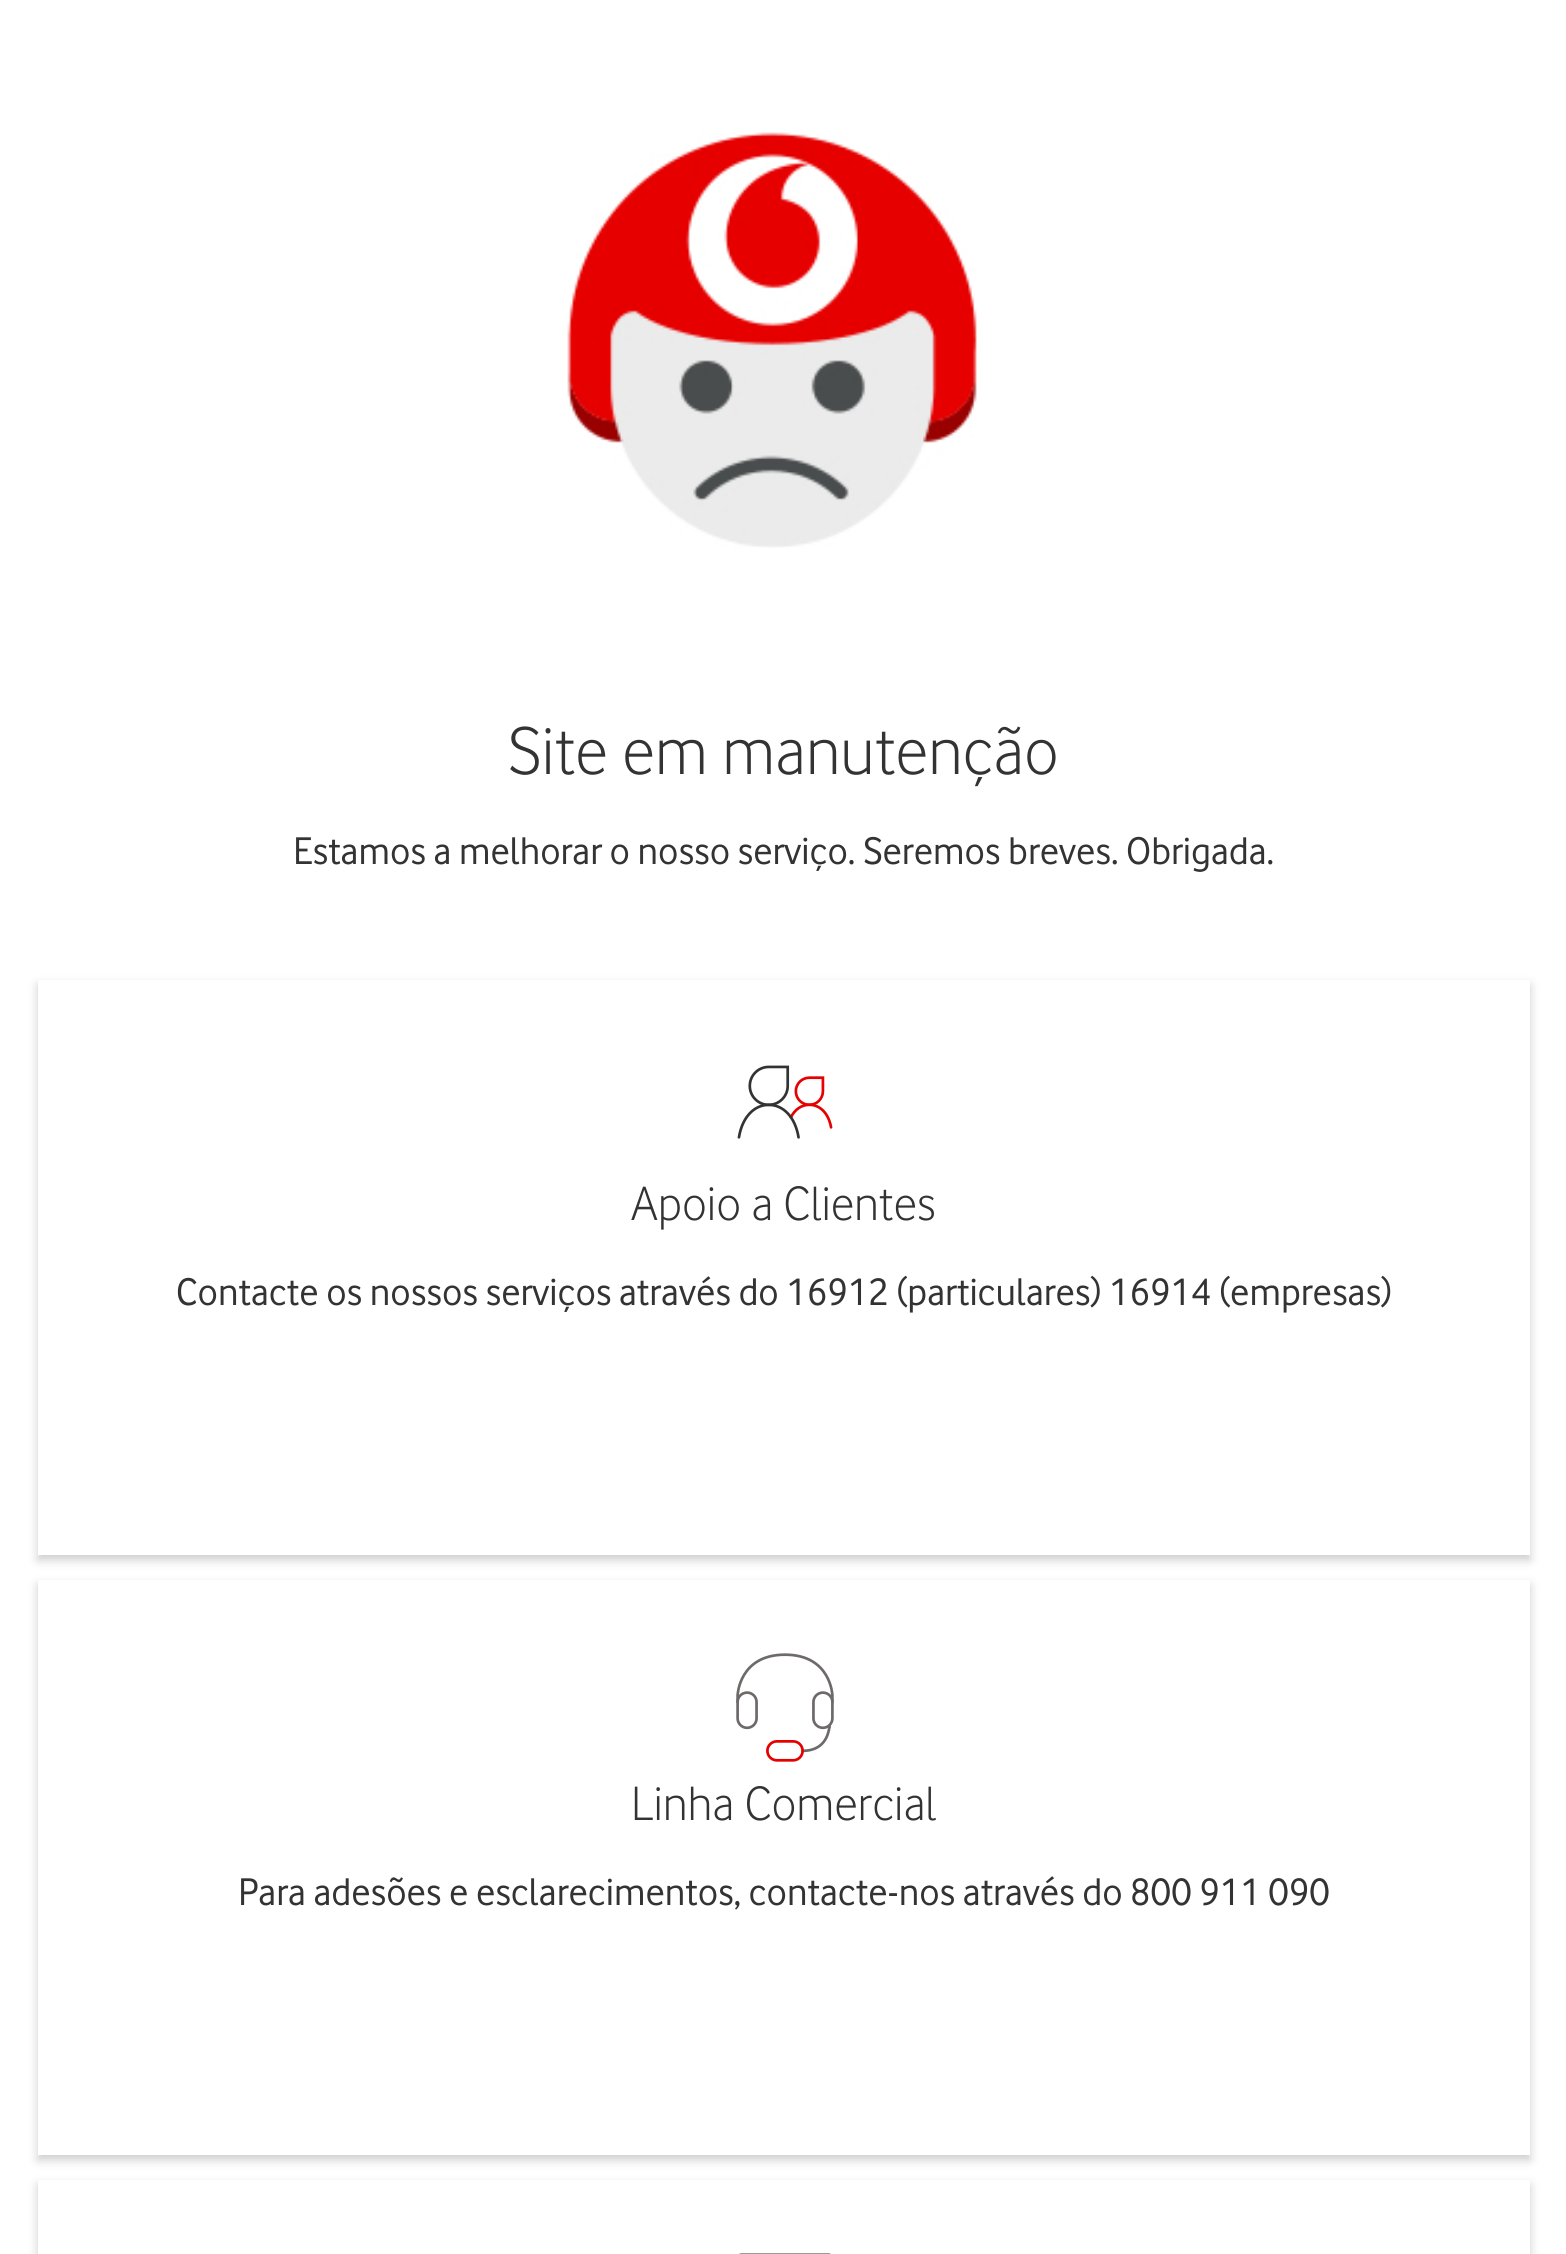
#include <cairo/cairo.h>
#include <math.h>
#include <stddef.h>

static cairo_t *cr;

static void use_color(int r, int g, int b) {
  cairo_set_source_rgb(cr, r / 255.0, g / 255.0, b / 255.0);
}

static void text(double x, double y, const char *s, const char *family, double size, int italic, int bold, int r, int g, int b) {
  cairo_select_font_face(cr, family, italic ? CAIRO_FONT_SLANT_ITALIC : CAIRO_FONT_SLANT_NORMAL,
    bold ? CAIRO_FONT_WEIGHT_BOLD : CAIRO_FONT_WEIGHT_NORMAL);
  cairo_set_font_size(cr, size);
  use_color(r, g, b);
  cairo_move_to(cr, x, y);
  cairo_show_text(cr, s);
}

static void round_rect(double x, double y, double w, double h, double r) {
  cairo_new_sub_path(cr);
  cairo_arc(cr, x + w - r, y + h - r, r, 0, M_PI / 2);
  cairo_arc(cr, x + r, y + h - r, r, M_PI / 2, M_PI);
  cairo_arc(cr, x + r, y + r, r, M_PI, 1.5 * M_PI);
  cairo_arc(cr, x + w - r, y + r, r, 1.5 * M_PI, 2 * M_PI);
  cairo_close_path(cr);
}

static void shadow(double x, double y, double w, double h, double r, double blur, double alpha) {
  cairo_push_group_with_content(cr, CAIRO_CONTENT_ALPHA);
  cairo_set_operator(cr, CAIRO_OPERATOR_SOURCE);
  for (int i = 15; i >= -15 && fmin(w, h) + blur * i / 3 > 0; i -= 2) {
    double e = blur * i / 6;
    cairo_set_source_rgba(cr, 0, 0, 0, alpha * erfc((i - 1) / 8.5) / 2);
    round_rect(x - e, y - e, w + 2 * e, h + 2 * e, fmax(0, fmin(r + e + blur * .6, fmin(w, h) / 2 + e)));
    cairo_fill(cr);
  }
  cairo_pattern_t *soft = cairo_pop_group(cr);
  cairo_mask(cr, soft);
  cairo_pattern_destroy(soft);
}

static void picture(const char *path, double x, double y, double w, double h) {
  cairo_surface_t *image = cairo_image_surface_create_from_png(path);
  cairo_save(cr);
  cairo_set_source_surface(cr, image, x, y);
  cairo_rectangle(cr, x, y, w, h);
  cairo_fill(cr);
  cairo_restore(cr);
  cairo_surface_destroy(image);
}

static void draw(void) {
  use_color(255, 255, 255);
  cairo_paint(cr);
  picture("img_01.png", 567, 132, 410, 416);
  cairo_save(cr);
  cairo_set_fill_rule(cr, CAIRO_FILL_RULE_EVEN_ODD);
  cairo_new_path(cr);
  cairo_move_to(cr, 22, 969);
  cairo_line_to(cr, 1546, 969);
  cairo_line_to(cr, 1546, 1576);
  cairo_line_to(cr, 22, 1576);
  cairo_close_path(cr);
  cairo_move_to(cr, 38, 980);
  cairo_line_to(cr, 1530, 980);
  cairo_line_to(cr, 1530, 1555);
  cairo_line_to(cr, 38, 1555);
  cairo_close_path(cr);
  cairo_clip(cr);
  use_color(0, 0, 0);
  shadow(38, 985, 1492, 575, 0, 5, 0.2);
  cairo_restore(cr);
  picture("img_02.png", 737, 1065, 96, 74);
  cairo_save(cr);
  cairo_set_fill_rule(cr, CAIRO_FILL_RULE_EVEN_ODD);
  cairo_new_path(cr);
  cairo_move_to(cr, 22, 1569);
  cairo_line_to(cr, 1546, 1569);
  cairo_line_to(cr, 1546, 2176);
  cairo_line_to(cr, 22, 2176);
  cairo_close_path(cr);
  cairo_move_to(cr, 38, 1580);
  cairo_line_to(cr, 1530, 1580);
  cairo_line_to(cr, 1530, 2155);
  cairo_line_to(cr, 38, 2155);
  cairo_close_path(cr);
  cairo_clip(cr);
  use_color(0, 0, 0);
  shadow(38, 1585, 1492, 575, 0, 5, 0.2);
  cairo_restore(cr);
  picture("img_03.png", 736, 1653, 98, 109);
  cairo_save(cr);
  cairo_set_fill_rule(cr, CAIRO_FILL_RULE_EVEN_ODD);
  cairo_new_path(cr);
  cairo_move_to(cr, 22, 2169);
  cairo_line_to(cr, 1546, 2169);
  cairo_line_to(cr, 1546, 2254);
  cairo_line_to(cr, 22, 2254);
  cairo_close_path(cr);
  cairo_move_to(cr, 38, 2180);
  cairo_line_to(cr, 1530, 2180);
  cairo_line_to(cr, 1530, 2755);
  cairo_line_to(cr, 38, 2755);
  cairo_close_path(cr);
  cairo_clip(cr);
  use_color(0, 0, 0);
  shadow(38, 2185, 1492, 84, 0, 5, 0.2);
  cairo_restore(cr);
  picture("img_04.png", 739, 2253, 92, 1);
  text(508, 774, "Site em manutenção", "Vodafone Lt", 70, 0, 0, 51, 51, 51);
  text(293, 864, "Estamos a melhorar o nosso serviço. Seremos breves. Obrigada.", "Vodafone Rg", 40, 0, 0, 51, 51, 51);
  text(631, 1220, "Apoio a Clientes", "Vodafone Lt", 50, 0, 0, 51, 51, 51);
  text(176, 1305, "Contacte os nossos serviços através do 16912 (particulares) 16914 (empresas)", "Vodafone Rg", 40, 0, 0, 51, 51, 51);
  text(631, 1820, "Linha Comercial", "Vodafone Lt", 50, 0, 0, 51, 51, 51);
  text(238, 1905, "Para adesões e esclarecimentos, contacte-nos através do 800 911 090", "Vodafone Rg", 40, 0, 0, 51, 51, 51);
}

int main(void) {
  cairo_surface_t *surface = cairo_image_surface_create(CAIRO_FORMAT_RGB24, 1566, 2254);
  cr = cairo_create(surface);
  cairo_font_options_t *options = cairo_font_options_create();
  cairo_font_options_set_hint_metrics(options, CAIRO_HINT_METRICS_OFF);
  cairo_font_options_set_hint_style(options, CAIRO_HINT_STYLE_NONE);
  cairo_set_font_options(cr, options);
  cairo_set_miter_limit(cr, 4);
  draw();
  cairo_surface_write_to_png(surface, "out.png");
  cairo_font_options_destroy(options);
  cairo_destroy(cr);
  cairo_surface_destroy(surface);
  return 0;
}
